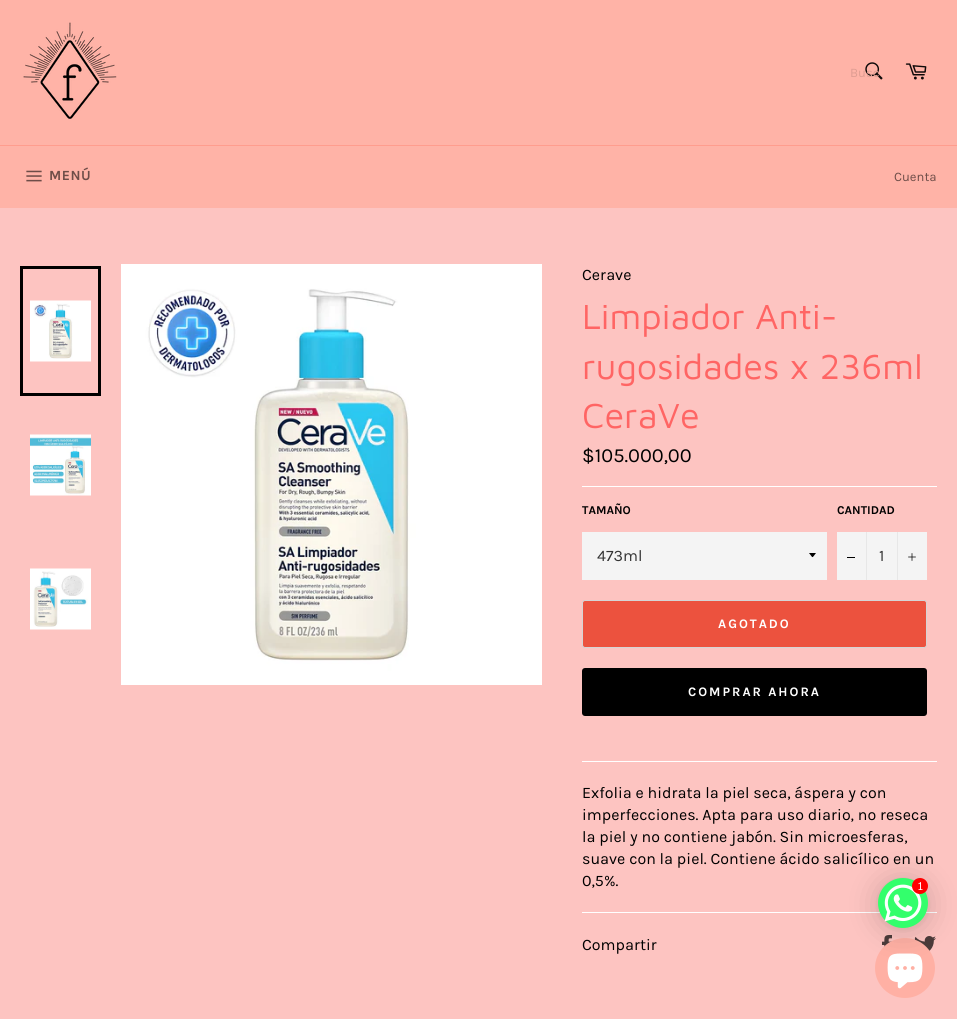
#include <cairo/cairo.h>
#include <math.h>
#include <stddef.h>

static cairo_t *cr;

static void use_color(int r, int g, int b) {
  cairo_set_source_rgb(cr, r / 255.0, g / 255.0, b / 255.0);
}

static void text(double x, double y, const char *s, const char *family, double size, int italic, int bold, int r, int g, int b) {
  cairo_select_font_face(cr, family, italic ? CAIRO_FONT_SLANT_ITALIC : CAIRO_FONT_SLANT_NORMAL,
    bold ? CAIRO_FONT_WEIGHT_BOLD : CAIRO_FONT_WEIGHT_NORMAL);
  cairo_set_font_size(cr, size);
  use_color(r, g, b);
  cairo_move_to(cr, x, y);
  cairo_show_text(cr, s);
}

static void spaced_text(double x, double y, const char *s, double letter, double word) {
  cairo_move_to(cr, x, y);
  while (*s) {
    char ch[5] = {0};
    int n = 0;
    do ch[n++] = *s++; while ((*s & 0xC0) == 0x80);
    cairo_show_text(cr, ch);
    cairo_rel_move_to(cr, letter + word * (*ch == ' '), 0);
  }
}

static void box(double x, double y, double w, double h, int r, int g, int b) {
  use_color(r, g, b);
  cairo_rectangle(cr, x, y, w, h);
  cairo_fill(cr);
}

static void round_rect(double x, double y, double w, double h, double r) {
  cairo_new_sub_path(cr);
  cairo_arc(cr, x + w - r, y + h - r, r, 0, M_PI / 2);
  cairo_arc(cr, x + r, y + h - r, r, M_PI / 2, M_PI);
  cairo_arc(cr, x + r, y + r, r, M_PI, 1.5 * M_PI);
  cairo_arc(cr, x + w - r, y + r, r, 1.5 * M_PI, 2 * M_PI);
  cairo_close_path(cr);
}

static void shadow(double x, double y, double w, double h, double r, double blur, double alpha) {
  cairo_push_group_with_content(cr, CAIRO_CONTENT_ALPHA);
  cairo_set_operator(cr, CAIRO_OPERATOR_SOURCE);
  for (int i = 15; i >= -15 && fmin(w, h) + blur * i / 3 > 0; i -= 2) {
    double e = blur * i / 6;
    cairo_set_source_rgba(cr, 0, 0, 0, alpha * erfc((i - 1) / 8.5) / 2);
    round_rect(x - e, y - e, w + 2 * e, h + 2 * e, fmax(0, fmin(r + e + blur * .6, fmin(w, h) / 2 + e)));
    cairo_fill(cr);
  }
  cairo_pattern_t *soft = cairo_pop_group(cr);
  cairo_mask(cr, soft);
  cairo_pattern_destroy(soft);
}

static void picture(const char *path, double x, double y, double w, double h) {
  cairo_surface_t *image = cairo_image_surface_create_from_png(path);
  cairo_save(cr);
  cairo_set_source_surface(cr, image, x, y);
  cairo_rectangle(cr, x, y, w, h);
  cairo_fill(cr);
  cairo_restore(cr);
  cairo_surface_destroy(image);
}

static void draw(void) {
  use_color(255, 179, 167);
  cairo_paint(cr);
  picture("img_01.png", 23, 22, 94, 97);
  picture("img_02.png", 865, 62, 18, 18);
  picture("img_03.png", 905, 63, 22, 17);
  box(0, 145, 957, 1, 255, 157, 142);
  picture("img_04.png", 26, 170, 16, 12);
  box(0, 208, 957, 811, 253, 196, 193);
  picture("img_05.png", 30, 300, 61, 62);
  cairo_rectangle(cr, 21.5, 267.5, 78, 127);
  use_color(0, 0, 0);
  cairo_set_line_width(cr, 3);
  cairo_stroke(cr);
  picture("img_06.png", 30, 434, 61, 62);
  picture("img_07.png", 30, 568, 61, 62);
  picture("img_08.png", 121, 264, 421, 421);
  box(582, 486, 355, 1, 255, 255, 255);
  box(582, 532, 245, 48, 244, 244, 244);
  use_color(0, 0, 0);
  cairo_new_path(cr);
  cairo_move_to(cr, 809, 553);
  cairo_curve_to(cr, 813.5, 558.5, 811.5, 558.5, 816, 553);
  cairo_close_path(cr);
  cairo_fill(cr);
  box(837, 532, 90, 48, 244, 244, 244);
  box(866, 532, 1, 48, 231, 231, 231);
  box(847, 557, 8, 1, 0, 0, 0);
  box(897, 532, 1, 48, 231, 231, 231);
  picture("img_09.png", 908, 553, 8, 8);
  use_color(236, 82, 62);
  round_rect(582.5, 600.5, 344, 47, 2.5);
  cairo_fill_preserve(cr);
  use_color(213, 213, 213);
  cairo_set_line_width(cr, 1);
  cairo_stroke(cr);
  use_color(0, 0, 0);
  round_rect(582, 668, 345, 48, 3);
  cairo_fill(cr);
  box(582, 761, 355, 1, 255, 255, 255);
  box(582, 912, 355, 1, 255, 255, 255);
  picture("img_10.png", 882, 935, 10, 12);
  picture("img_11.png", 914, 936, 22, 15);
  use_color(255, 176, 164);
  cairo_arc(cr, 905, 968, 30, 0, 2 * M_PI);
  cairo_fill(cr);
  picture("img_13.png", 887, 953, 36, 36);
  use_color(0, 0, 0);
  shadow(878, 880, 50, 50, 25, 16, 0.16);
  shadow(878, 879, 50, 50, 25, 3, 0.06);
  use_color(51, 255, 108);
  cairo_arc(cr, 903, 903, 25, 0, 2 * M_PI);
  cairo_fill(cr);
  picture("img_12.png", 884, 884, 38, 38);
  use_color(255, 0, 0);
  cairo_arc(cr, 920, 886, 8, 0, 2 * M_PI);
  cairo_fill(cr);
  text(850, 77, "Busc", "Karla", 13, 0, 0, 223, 157, 146);
  cairo_select_font_face(cr, "Karla", CAIRO_FONT_SLANT_NORMAL, CAIRO_FONT_WEIGHT_BOLD);
  cairo_set_font_size(cr, 14);
  use_color(110, 77, 72);
  spaced_text(49, 180, "MENÚ", 0.5, 0);
  text(894, 181, "Cuenta", "Karla", 13, 0, 0, 110, 77, 72);
  text(582, 280, "Cerave", "Karla", 16, 0, 0, 0, 0, 0);
  text(582, 329, "Limpiador Anti-", "Maven Pro", 36, 0, 0, 255, 101, 100);
  text(582, 379, "rugosidades x 236ml", "Maven Pro", 36, 0, 0, 255, 101, 100);
  text(582, 428, "CeraVe", "Maven Pro", 36, 0, 0, 255, 101, 100);
  text(582, 462, "$105.000,00", "Karla", 20, 0, 0, 0, 0, 0);
  text(582, 514, "TAMAÑO", "Karla", 12, 0, 1, 0, 0, 0);
  text(597, 561, "473ml", "Karla", 16, 0, 0, 51, 51, 51);
  text(837, 514, "CANTIDAD", "Karla", 12, 0, 1, 0, 0, 0);
  text(879, 561, "1", "Karla", 16, 0, 0, 51, 51, 51);
  cairo_select_font_face(cr, "Karla", CAIRO_FONT_SLANT_NORMAL, CAIRO_FONT_WEIGHT_BOLD);
  cairo_set_font_size(cr, 13);
  use_color(255, 255, 255);
  spaced_text(718, 628, "AGOTADO", 2, 0);
  spaced_text(688, 696, "COMPRAR AHORA", 2, 0);
  text(582, 798, "Exfolia e hidrata la piel seca, áspera y con", "Karla", 16, 0, 0, 0, 0, 0);
  text(582, 820, "imperfecciones. Apta para uso diario, no reseca", "Karla", 16, 0, 0, 0, 0, 0);
  text(582, 842, "la piel y no contiene jabón. Sin microesferas,", "Karla", 16, 0, 0, 0, 0, 0);
  text(582, 864, "suave con la piel. Contiene ácido salicílico en un", "Karla", 16, 0, 0, 0, 0, 0);
  text(582, 886, "0,5%.", "Karla", 16, 0, 0, 0, 0, 0);
  text(582, 950, "Compartir", "Karla", 16, 0, 0, 0, 0, 0);
  text(918, 890, "1", "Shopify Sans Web", 11, 0, 0, 255, 255, 255);
}

int main(void) {
  cairo_surface_t *surface = cairo_image_surface_create(CAIRO_FORMAT_RGB24, 957, 1019);
  cr = cairo_create(surface);
  cairo_font_options_t *options = cairo_font_options_create();
  cairo_font_options_set_hint_metrics(options, CAIRO_HINT_METRICS_OFF);
  cairo_font_options_set_hint_style(options, CAIRO_HINT_STYLE_NONE);
  cairo_set_font_options(cr, options);
  cairo_set_miter_limit(cr, 4);
  draw();
  cairo_surface_write_to_png(surface, "out.png");
  cairo_font_options_destroy(options);
  cairo_destroy(cr);
  cairo_surface_destroy(surface);
  return 0;
}
